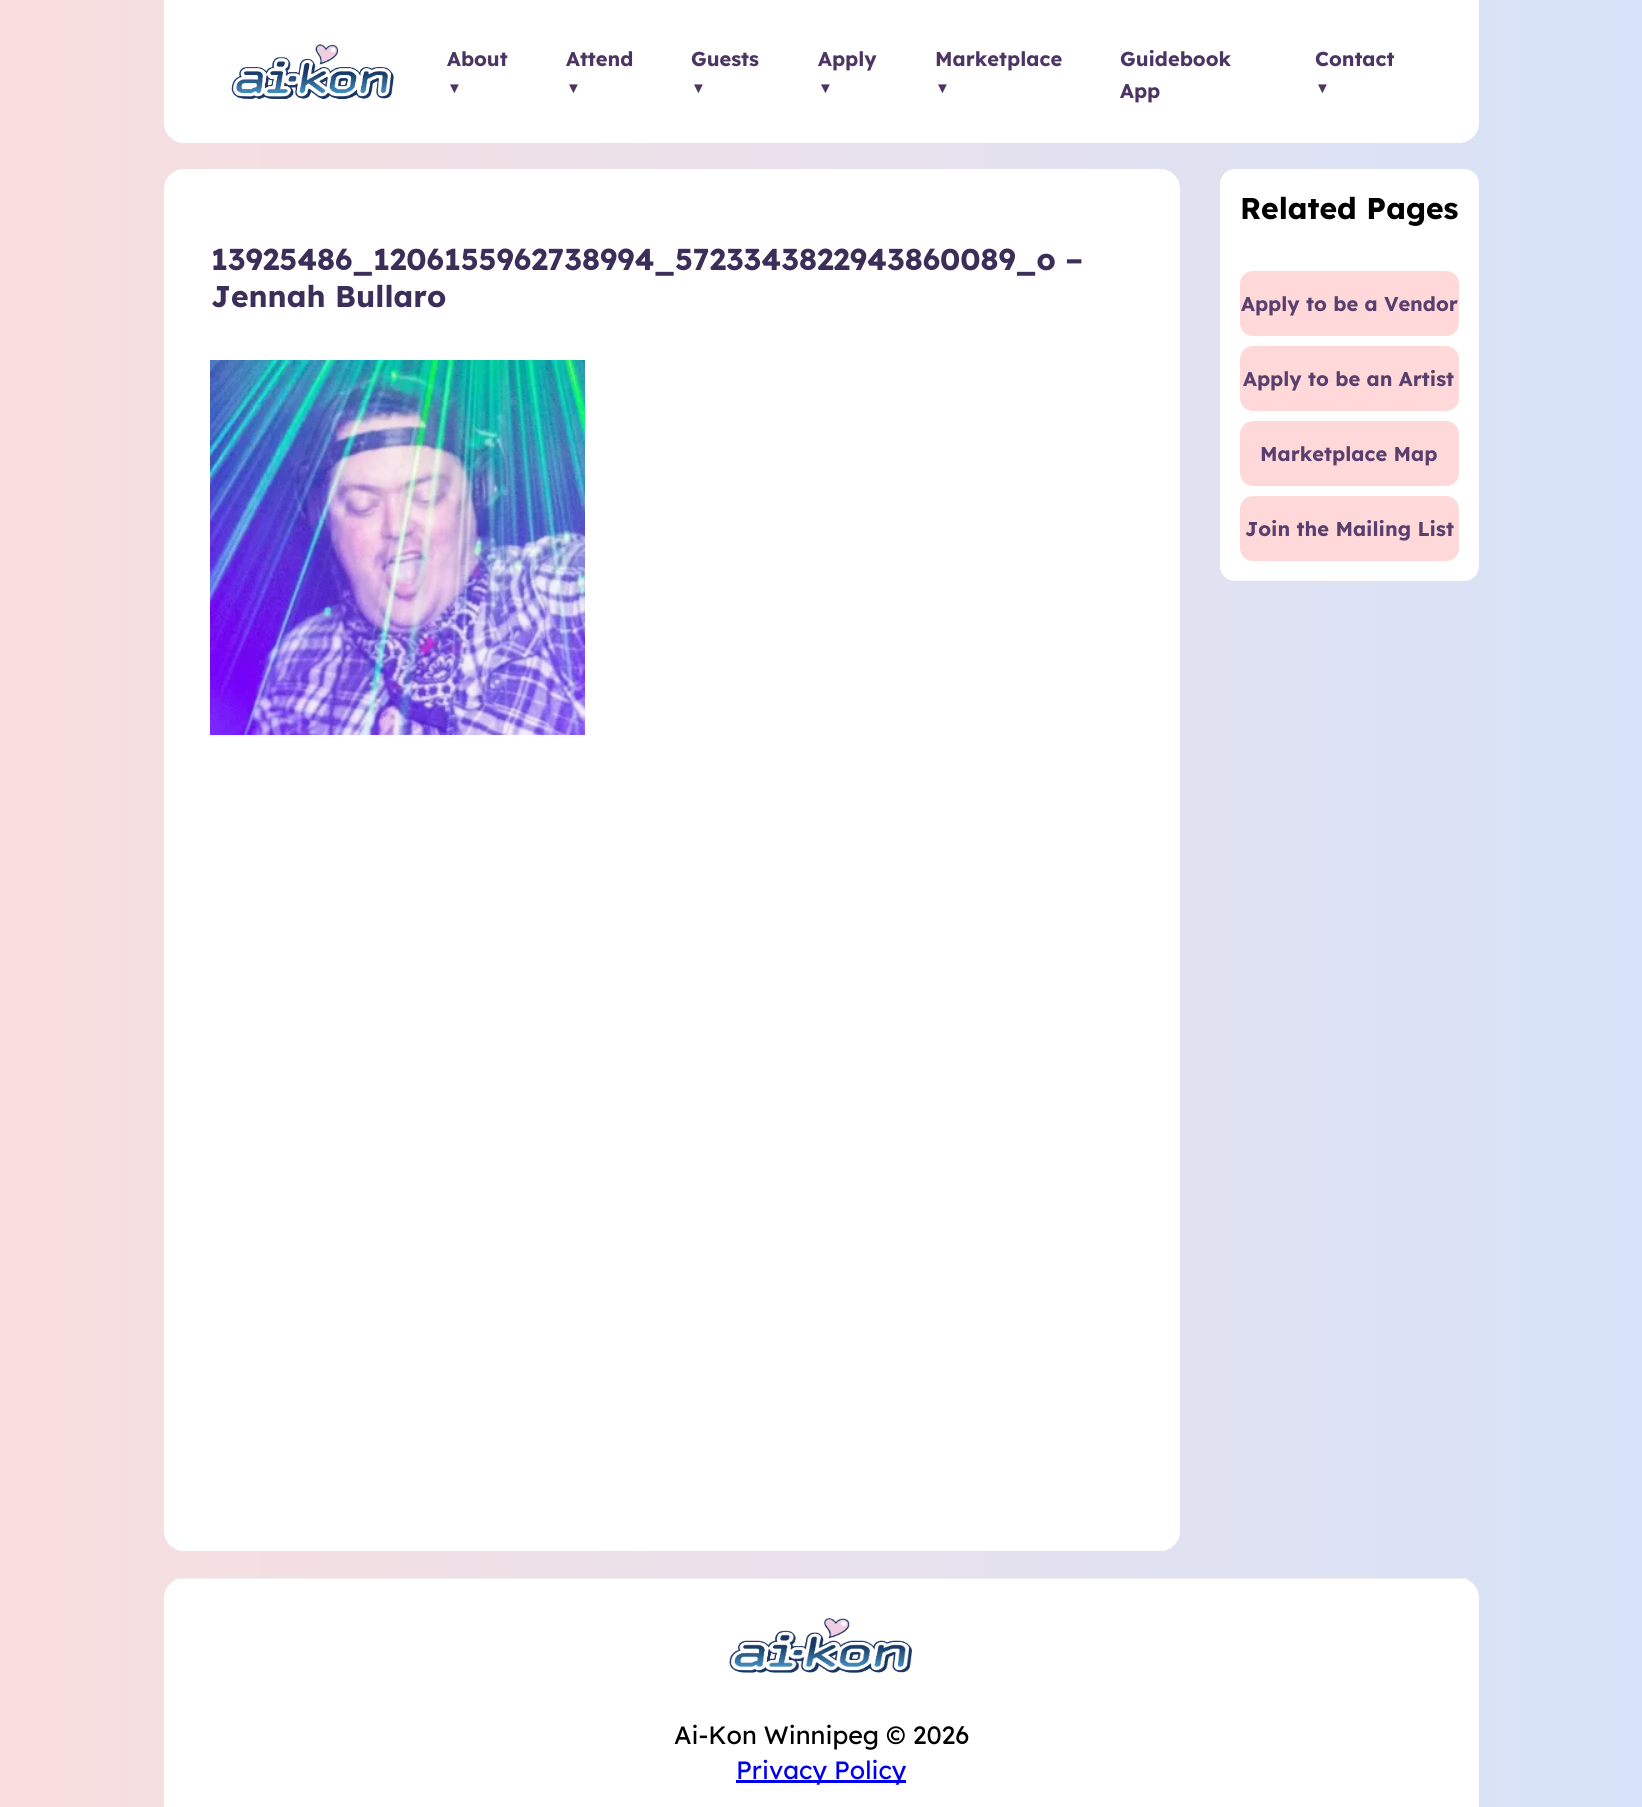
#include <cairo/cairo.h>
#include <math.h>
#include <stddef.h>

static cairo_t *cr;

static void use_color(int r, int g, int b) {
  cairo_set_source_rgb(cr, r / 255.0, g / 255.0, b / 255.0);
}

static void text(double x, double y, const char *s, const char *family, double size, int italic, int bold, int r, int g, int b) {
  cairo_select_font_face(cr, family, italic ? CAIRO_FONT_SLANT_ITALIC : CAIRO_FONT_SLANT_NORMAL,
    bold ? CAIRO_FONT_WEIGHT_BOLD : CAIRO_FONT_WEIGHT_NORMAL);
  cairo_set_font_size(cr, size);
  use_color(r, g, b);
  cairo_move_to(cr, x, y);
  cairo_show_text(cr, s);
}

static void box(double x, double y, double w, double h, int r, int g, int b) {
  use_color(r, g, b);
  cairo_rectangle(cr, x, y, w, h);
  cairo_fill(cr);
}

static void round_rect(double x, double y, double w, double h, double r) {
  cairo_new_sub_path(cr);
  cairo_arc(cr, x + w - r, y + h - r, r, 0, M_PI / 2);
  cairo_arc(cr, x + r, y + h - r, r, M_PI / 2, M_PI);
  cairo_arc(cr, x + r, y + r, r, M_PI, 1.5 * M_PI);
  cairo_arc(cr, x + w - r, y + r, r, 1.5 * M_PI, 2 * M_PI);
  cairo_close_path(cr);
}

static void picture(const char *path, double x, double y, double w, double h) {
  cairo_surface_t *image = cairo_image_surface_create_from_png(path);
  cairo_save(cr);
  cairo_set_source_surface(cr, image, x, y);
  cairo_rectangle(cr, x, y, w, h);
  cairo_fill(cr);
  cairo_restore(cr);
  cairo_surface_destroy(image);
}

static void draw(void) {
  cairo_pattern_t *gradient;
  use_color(255, 255, 255);
  cairo_paint(cr);
  gradient = cairo_pattern_create_linear(0, 904, 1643, 904);
  cairo_pattern_add_color_stop_rgba(gradient, 0, 0.976, 0.871, 0.871, 1);
  cairo_pattern_add_color_stop_rgba(gradient, 1, 0.843, 0.89, 0.976, 1);
  cairo_set_source(cr, gradient);
  cairo_pattern_destroy(gradient);
  cairo_rectangle(cr, 0, 0, 1642, 1807);
  cairo_fill(cr);
  use_color(255, 255, 255);
  cairo_new_path(cr);
  cairo_move_to(cr, 164, 0);
  cairo_line_to(cr, 1479, 0);
  cairo_line_to(cr, 1479, 123);
  cairo_curve_to(cr, 1479, 134, 1470, 143, 1459, 143);
  cairo_line_to(cr, 184, 143);
  cairo_curve_to(cr, 173, 143, 164, 134, 164, 123);
  cairo_close_path(cr);
  cairo_fill(cr);
  picture("img_01.png", 231, 44, 163, 56);
  round_rect(164, 169, 1016, 1382, 20);
  cairo_fill(cr);
  picture("img_02.png", 210, 360, 375, 375);
  round_rect(1220, 169, 259, 412, 15);
  cairo_fill(cr);
  use_color(255, 217, 217);
  round_rect(1240, 271, 219, 65, 13);
  cairo_fill(cr);
  round_rect(1240, 346, 219, 65, 13);
  cairo_fill(cr);
  round_rect(1240, 421, 219, 65, 13);
  cairo_fill(cr);
  round_rect(1240, 496, 219, 65, 13);
  cairo_fill(cr);
  use_color(255, 255, 255);
  cairo_new_path(cr);
  cairo_move_to(cr, 184, 1578);
  cairo_line_to(cr, 1459, 1578);
  cairo_curve_to(cr, 1470, 1578, 1479, 1587, 1479, 1598);
  cairo_line_to(cr, 1479, 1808);
  cairo_line_to(cr, 164, 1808);
  cairo_line_to(cr, 164, 1598);
  cairo_curve_to(cr, 164, 1587, 173, 1578, 184, 1578);
  cairo_close_path(cr);
  cairo_fill(cr);
  box(174, 1578, 1295, 1, 238, 238, 238);
  picture("img_03.png", 729, 1618, 183, 55);
  box(736, 1780, 170, 3, 0, 0, 238);
  text(447, 66, "About", "Lexend", 20, 0, 1, 75, 54, 99);
  text(447, 93, "▼", "Liberation Sans", 15, 0, 1, 75, 54, 99);
  text(566, 66, "Attend", "Lexend", 20, 0, 1, 75, 54, 99);
  text(566, 93, "▼", "Liberation Sans", 15, 0, 1, 75, 54, 99);
  text(691, 66, "Guests", "Lexend", 20, 0, 1, 75, 54, 99);
  text(691, 93, "▼", "Liberation Sans", 15, 0, 1, 75, 54, 99);
  text(818, 66, "Apply", "Lexend", 20, 0, 1, 75, 54, 99);
  text(818, 93, "▼", "Liberation Sans", 15, 0, 1, 75, 54, 99);
  text(935, 66, "Marketplace", "Lexend", 20, 0, 1, 75, 54, 99);
  text(935, 93, "▼", "Liberation Sans", 15, 0, 1, 75, 54, 99);
  text(1120, 66, "Guidebook", "Lexend", 20, 0, 1, 75, 54, 99);
  text(1120, 98, "App", "Lexend", 20, 0, 1, 75, 54, 99);
  text(1315, 66, "Contact", "Lexend", 20, 0, 1, 75, 54, 99);
  text(1315, 93, "▼", "Liberation Sans", 15, 0, 1, 75, 54, 99);
  text(211, 270, "13925486_1206155962738994_5723343822943860089_o –", "Lexend", 30, 0, 1, 59, 46, 88);
  text(211, 307, "Jennah Bullaro", "Lexend", 30, 0, 1, 59, 46, 88);
  text(1240, 219, "Related Pages", "Lexend", 30, 0, 1, 0, 0, 0);
  text(1241, 311, "Apply to be a Vendor", "Lexend", 20, 0, 1, 88, 63, 110);
  text(1243, 386, "Apply to be an Artist", "Lexend", 20, 0, 1, 88, 63, 110);
  text(1260, 461, "Marketplace Map", "Lexend", 20, 0, 1, 88, 63, 110);
  text(1245, 536, "Join the Mailing List", "Lexend", 20, 0, 1, 88, 63, 110);
  text(674, 1744, "Ai-Kon Winnipeg © 2026", "Lexend", 25, 0, 0, 0, 0, 0);
  text(736, 1779, "Privacy Policy", "Lexend", 25, 0, 0, 0, 0, 238);
}

int main(void) {
  cairo_surface_t *surface = cairo_image_surface_create(CAIRO_FORMAT_RGB24, 1642, 1807);
  cr = cairo_create(surface);
  cairo_font_options_t *options = cairo_font_options_create();
  cairo_font_options_set_hint_metrics(options, CAIRO_HINT_METRICS_OFF);
  cairo_font_options_set_hint_style(options, CAIRO_HINT_STYLE_NONE);
  cairo_set_font_options(cr, options);
  cairo_set_miter_limit(cr, 4);
  draw();
  cairo_surface_write_to_png(surface, "out.png");
  cairo_font_options_destroy(options);
  cairo_destroy(cr);
  cairo_surface_destroy(surface);
  return 0;
}
